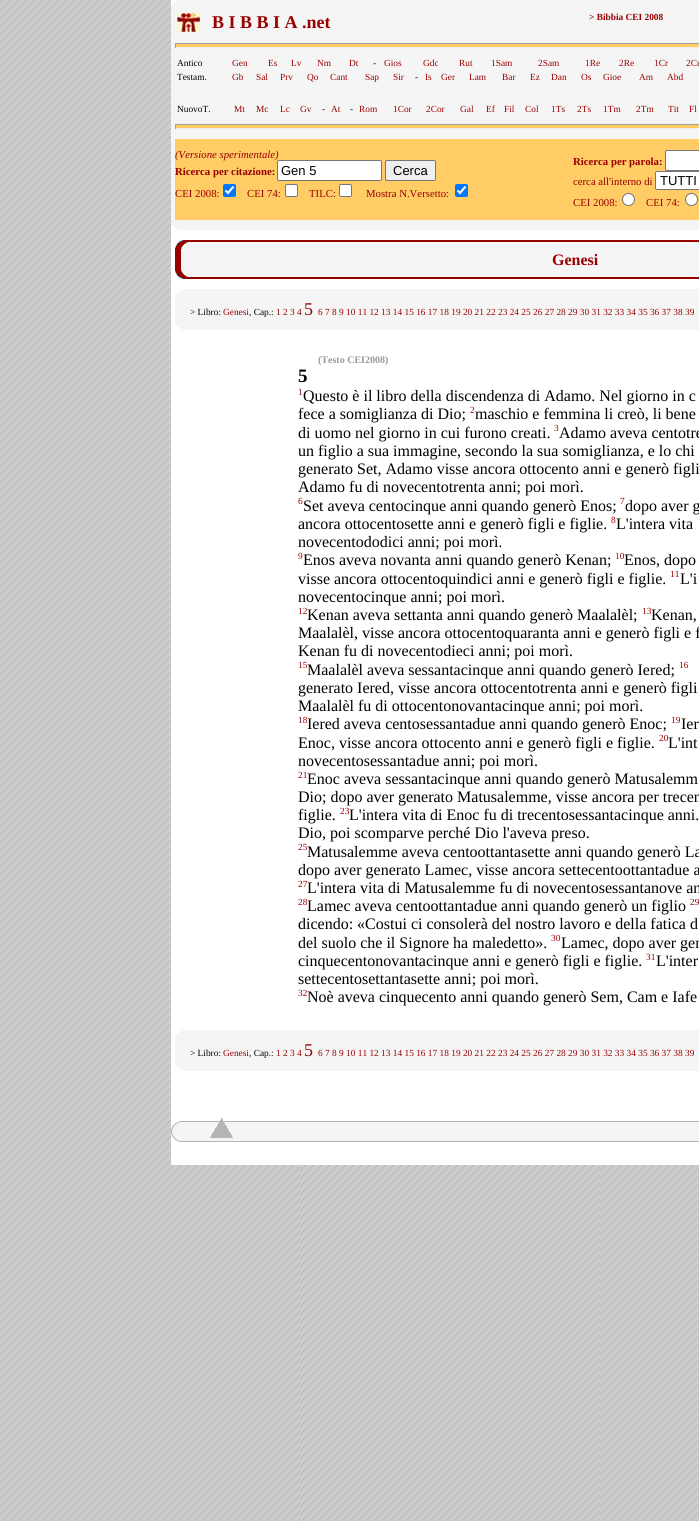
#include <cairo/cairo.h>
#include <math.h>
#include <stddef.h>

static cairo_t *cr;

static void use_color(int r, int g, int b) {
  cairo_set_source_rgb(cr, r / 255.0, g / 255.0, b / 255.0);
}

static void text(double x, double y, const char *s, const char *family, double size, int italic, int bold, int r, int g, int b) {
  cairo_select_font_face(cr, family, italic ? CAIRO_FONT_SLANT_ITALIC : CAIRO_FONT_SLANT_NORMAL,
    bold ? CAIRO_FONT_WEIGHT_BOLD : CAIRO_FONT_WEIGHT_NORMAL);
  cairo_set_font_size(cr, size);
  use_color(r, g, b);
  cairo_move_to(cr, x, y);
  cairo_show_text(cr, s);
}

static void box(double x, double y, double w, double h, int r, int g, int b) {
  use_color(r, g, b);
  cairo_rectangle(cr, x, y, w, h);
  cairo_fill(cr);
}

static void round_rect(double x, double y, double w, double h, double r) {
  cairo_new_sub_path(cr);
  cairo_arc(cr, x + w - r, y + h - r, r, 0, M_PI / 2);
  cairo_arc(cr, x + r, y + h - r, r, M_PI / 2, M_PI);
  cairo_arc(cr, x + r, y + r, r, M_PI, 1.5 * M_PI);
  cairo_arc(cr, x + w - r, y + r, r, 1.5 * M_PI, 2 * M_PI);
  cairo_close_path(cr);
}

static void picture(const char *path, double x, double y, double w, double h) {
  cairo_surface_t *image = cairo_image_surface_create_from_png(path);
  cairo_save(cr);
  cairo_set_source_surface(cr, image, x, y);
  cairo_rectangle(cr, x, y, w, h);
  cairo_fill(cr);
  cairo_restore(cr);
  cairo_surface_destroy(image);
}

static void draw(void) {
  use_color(255, 255, 255);
  cairo_paint(cr);
  picture("img_01.png", 0, 0, 699, 1521);
  box(171, 230, 528, 935, 255, 255, 255);
  box(171, 0, 528, 230, 245, 245, 245);
  picture("img_02.png", 171, 0, 8, 6);
  picture("img_03.png", 177, 13, 23, 19);
  box(175, 44, 524, 3, 255, 204, 102);
  box(175, 43, 524, 1, 159, 159, 159);
  box(175, 47, 524, 1, 238, 238, 238);
  box(175, 43, 1, 5, 159, 159, 159);
  box(175, 125, 524, 3, 255, 204, 102);
  box(175, 124, 524, 1, 159, 159, 159);
  box(175, 128, 524, 1, 238, 238, 238);
  box(175, 124, 1, 5, 159, 159, 159);
  box(175, 139, 524, 81, 255, 204, 102);
  use_color(239, 239, 239);
  round_rect(385.5, 160.5, 50, 20, 1.5);
  cairo_fill_preserve(cr);
  use_color(118, 118, 118);
  cairo_set_line_width(cr, 1);
  cairo_stroke(cr);
  use_color(0, 117, 255);
  round_rect(223, 184, 13, 13, 2);
  cairo_fill(cr);
  cairo_new_path(cr);
  cairo_move_to(cr, 225.5, 190.5);
  cairo_line_to(cr, 228, 193);
  cairo_line_to(cr, 233.5, 186.5);
  use_color(255, 255, 255);
  cairo_set_line_width(cr, 2.1);
  cairo_stroke(cr);
  round_rect(285.5, 184.5, 12, 12, 1.5);
  cairo_fill_preserve(cr);
  use_color(118, 118, 118);
  cairo_set_line_width(cr, 1);
  cairo_stroke(cr);
  use_color(255, 255, 255);
  round_rect(339.5, 184.5, 12, 12, 1.5);
  cairo_fill_preserve(cr);
  use_color(118, 118, 118);
  cairo_stroke(cr);
  use_color(0, 117, 255);
  round_rect(455, 184, 13, 13, 2);
  cairo_fill(cr);
  cairo_new_path(cr);
  cairo_move_to(cr, 457.5, 190.5);
  cairo_line_to(cr, 460, 193);
  cairo_line_to(cr, 465.5, 186.5);
  use_color(255, 255, 255);
  cairo_set_line_width(cr, 2.1);
  cairo_stroke(cr);
  round_rect(665.5, 150.5, 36, 20, 1.5);
  cairo_fill_preserve(cr);
  use_color(118, 118, 118);
  cairo_set_line_width(cr, 1);
  cairo_stroke(cr);
  use_color(255, 255, 255);
  round_rect(655.5, 171.5, 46, 18, 1.5);
  cairo_fill_preserve(cr);
  use_color(118, 118, 118);
  cairo_stroke(cr);
  use_color(255, 255, 255);
  cairo_arc(cr, 628.5, 199.5, 6, 0, 2 * M_PI);
  cairo_fill_preserve(cr);
  use_color(118, 118, 118);
  cairo_stroke(cr);
  use_color(255, 255, 255);
  cairo_arc(cr, 691.5, 199.5, 6, 0, 2 * M_PI);
  cairo_fill_preserve(cr);
  use_color(118, 118, 118);
  cairo_stroke(cr);
  picture("img_04.png", 171, 224, 8, 6);
  box(181, 250, 518, 19, 245, 245, 245);
  picture("img_05.png", 175, 240, 524, 10);
  box(175, 250, 6, 19, 153, 0, 0);
  picture("img_06.png", 175, 269, 524, 10);
  box(175, 289, 524, 41, 245, 245, 245);
  picture("img_02.png", 175, 289, 8, 6);
  picture("img_04.png", 175, 324, 8, 6);
  box(175, 1030, 524, 41, 245, 245, 245);
  picture("img_02.png", 175, 1030, 8, 6);
  picture("img_04.png", 175, 1065, 8, 6);
  picture("img_07.png", 171, 1118, 528, 24);
  text(212, 28, "B I B B I A .net", "Liberation Serif", 18, 0, 1, 153, 0, 0);
  text(589, 20, "> Bibbia CEI 2008", "Liberation Serif", 9.35, 0, 1, 153, 0, 0);
  text(177, 66, "Antico", "Liberation Serif", 9.35, 0, 0, 0, 0, 0);
  text(232, 66, "Gen", "Liberation Serif", 9.35, 0, 0, 153, 0, 0);
  text(268, 66, "Es", "Liberation Serif", 9.35, 0, 0, 153, 0, 0);
  text(291, 66, "Lv", "Liberation Serif", 9.35, 0, 0, 153, 0, 0);
  text(317, 66, "Nm", "Liberation Serif", 9.35, 0, 0, 153, 0, 0);
  text(349, 66, "Dt", "Liberation Serif", 9.35, 0, 0, 153, 0, 0);
  text(373, 66, "-", "Liberation Serif", 9.35, 0, 0, 0, 0, 0);
  text(384, 66, "Gios", "Liberation Serif", 9.35, 0, 0, 153, 0, 0);
  text(423, 66, "Gdc", "Liberation Serif", 9.35, 0, 0, 153, 0, 0);
  text(459, 66, "Rut", "Liberation Serif", 9.35, 0, 0, 153, 0, 0);
  text(491, 66, "1Sam", "Liberation Serif", 9.35, 0, 0, 153, 0, 0);
  text(538, 66, "2Sam", "Liberation Serif", 9.35, 0, 0, 153, 0, 0);
  text(585, 66, "1Re", "Liberation Serif", 9.35, 0, 0, 153, 0, 0);
  text(619, 66, "2Re", "Liberation Serif", 9.35, 0, 0, 153, 0, 0);
  text(654, 66, "1Cr", "Liberation Serif", 9.35, 0, 0, 153, 0, 0);
  text(686, 66, "2Cr", "Liberation Serif", 9.35, 0, 0, 153, 0, 0);
  text(177, 80, "Testam.", "Liberation Serif", 9.35, 0, 0, 0, 0, 0);
  text(232, 80, "Gb", "Liberation Serif", 9.35, 0, 0, 153, 0, 0);
  text(256, 80, "Sal", "Liberation Serif", 9.35, 0, 0, 153, 0, 0);
  text(280, 80, "Prv", "Liberation Serif", 9.35, 0, 0, 153, 0, 0);
  text(307, 80, "Qo", "Liberation Serif", 9.35, 0, 0, 153, 0, 0);
  text(330, 80, "Cant", "Liberation Serif", 9.35, 0, 0, 153, 0, 0);
  text(365, 80, "Sap", "Liberation Serif", 9.35, 0, 0, 153, 0, 0);
  text(393, 80, "Sir", "Liberation Serif", 9.35, 0, 0, 153, 0, 0);
  text(415, 80, "-", "Liberation Serif", 9.35, 0, 0, 0, 0, 0);
  text(425, 80, "Is", "Liberation Serif", 9.35, 0, 0, 153, 0, 0);
  text(441, 80, "Ger", "Liberation Serif", 9.35, 0, 0, 153, 0, 0);
  text(469, 80, "Lam", "Liberation Serif", 9.35, 0, 0, 153, 0, 0);
  text(502, 80, "Bar", "Liberation Serif", 9.35, 0, 0, 153, 0, 0);
  text(530, 80, "Ez", "Liberation Serif", 9.35, 0, 0, 153, 0, 0);
  text(551, 80, "Dan", "Liberation Serif", 9.35, 0, 0, 153, 0, 0);
  text(581, 80, "Os", "Liberation Serif", 9.35, 0, 0, 153, 0, 0);
  text(603, 80, "Gioe", "Liberation Serif", 9.35, 0, 0, 153, 0, 0);
  text(639, 80, "Am", "Liberation Serif", 9.35, 0, 0, 153, 0, 0);
  text(667, 80, "Abd", "Liberation Serif", 9.35, 0, 0, 153, 0, 0);
  text(177, 112, "NuovoT.", "Liberation Serif", 9.35, 0, 0, 0, 0, 0);
  text(234, 112, "Mt", "Liberation Serif", 9.35, 0, 0, 153, 0, 0);
  text(256, 112, "Mc", "Liberation Serif", 9.35, 0, 0, 153, 0, 0);
  text(280, 112, "Lc", "Liberation Serif", 9.35, 0, 0, 153, 0, 0);
  text(300, 112, "Gv", "Liberation Serif", 9.35, 0, 0, 153, 0, 0);
  text(322, 112, "-", "Liberation Serif", 9.35, 0, 0, 0, 0, 0);
  text(331, 112, "At", "Liberation Serif", 9.35, 0, 0, 153, 0, 0);
  text(350, 112, "-", "Liberation Serif", 9.35, 0, 0, 0, 0, 0);
  text(359, 112, "Rom", "Liberation Serif", 9.35, 0, 0, 153, 0, 0);
  text(393, 112, "1Cor", "Liberation Serif", 9.35, 0, 0, 153, 0, 0);
  text(426, 112, "2Cor", "Liberation Serif", 9.35, 0, 0, 153, 0, 0);
  text(460, 112, "Gal", "Liberation Serif", 9.35, 0, 0, 153, 0, 0);
  text(486, 112, "Ef", "Liberation Serif", 9.35, 0, 0, 153, 0, 0);
  text(504, 112, "Fil", "Liberation Serif", 9.35, 0, 0, 153, 0, 0);
  text(525, 112, "Col", "Liberation Serif", 9.35, 0, 0, 153, 0, 0);
  text(551, 112, "1Ts", "Liberation Serif", 9.35, 0, 0, 153, 0, 0);
  text(577, 112, "2Ts", "Liberation Serif", 9.35, 0, 0, 153, 0, 0);
  text(603, 112, "1Tm", "Liberation Serif", 9.35, 0, 0, 153, 0, 0);
  text(636, 112, "2Tm", "Liberation Serif", 9.35, 0, 0, 153, 0, 0);
  text(668, 112, "Tit", "Liberation Serif", 9.35, 0, 0, 153, 0, 0);
  text(689, 112, "Fl", "Liberation Serif", 9.35, 0, 0, 153, 0, 0);
  text(175, 158, "(Versione sperimentale)", "Liberation Serif", 10.75, 1, 0, 153, 0, 0);
  text(175, 175, "Ricerca per citazione:", "Liberation Serif", 10.75, 0, 1, 153, 0, 0);
  use_color(255, 255, 255);
  round_rect(277.5, 160.5, 104, 20, 1.5);
  cairo_fill_preserve(cr);
  use_color(118, 118, 118);
  cairo_stroke(cr);
  text(281, 175, "Gen 5", "Liberation Sans", 13, 0, 0, 0, 0, 0);
  text(393, 175, "Cerca", "Liberation Sans", 13, 0, 0, 0, 0, 0);
  text(175, 197, "CEI 2008:", "Liberation Serif", 10.75, 0, 0, 153, 0, 0);
  text(247, 197, "CEI 74:", "Liberation Serif", 10.75, 0, 0, 153, 0, 0);
  text(309, 197, "TILC:", "Liberation Serif", 10.75, 0, 0, 153, 0, 0);
  text(366, 197, "Mostra N.Versetto:", "Liberation Serif", 10.75, 0, 0, 153, 0, 0);
  text(573, 165, "Ricerca per parola:", "Liberation Serif", 10.75, 0, 1, 153, 0, 0);
  text(573, 185, "cerca all'interno di", "Liberation Serif", 10.75, 0, 0, 153, 0, 0);
  text(660, 185, "TUTTI", "Liberation Sans", 13, 0, 0, 0, 0, 0);
  text(573, 206, "CEI 2008:", "Liberation Serif", 10.75, 0, 0, 153, 0, 0);
  text(646, 206, "CEI 74:", "Liberation Serif", 10.75, 0, 0, 153, 0, 0);
  text(552, 265, "Genesi", "Liberation Serif", 16, 0, 1, 153, 0, 0);
  text(190, 315, "> Libro:", "Liberation Serif", 9.35, 0, 0, 0, 0, 0);
  text(223, 315, "Genesi", "Liberation Serif", 9.35, 0, 0, 153, 0, 0);
  text(249, 315, ", Cap.:", "Liberation Serif", 9.35, 0, 0, 0, 0, 0);
  text(276, 315, "1 2 3 4", "Liberation Serif", 9.35, 0, 0, 153, 0, 0);
  text(304, 315, "5", "Liberation Serif", 18, 0, 0, 153, 0, 0);
  text(318, 315, "6 7 8 9 10 11 12 13 14 15 16 17 18 19 20 21 22 23 24 25 26 27 28 29 30 31 32 33 34 35 36 37 38 39", "Liberation Serif", 9.35, 0, 0, 153, 0, 0);
  text(318, 363, "(Testo CEI2008)", "Liberation Serif", 10, 0, 1, 153, 153, 153);
  text(298, 382, "5", "Liberation Serif", 19, 0, 1, 0, 0, 0);
  text(298, 395, "1", "Liberation Serif", 9.35, 0, 0, 153, 0, 0);
  text(303, 401, "Questo è il libro della discendenza di Adamo. Nel giorno in c", "Liberation Serif", 16, 0, 0, 0, 0, 0);
  text(298, 419, "fece a somiglianza di Dio;", "Liberation Serif", 16, 0, 0, 0, 0, 0);
  text(470, 413, "2", "Liberation Serif", 9.35, 0, 0, 153, 0, 0);
  text(475, 419, "maschio e femmina li creò, li bene", "Liberation Serif", 16, 0, 0, 0, 0, 0);
  text(298, 438, "di uomo nel giorno in cui furono creati.", "Liberation Serif", 16, 0, 0, 0, 0, 0);
  text(554, 431, "3", "Liberation Serif", 9.35, 0, 0, 153, 0, 0);
  text(559, 438, "Adamo aveva centotre", "Liberation Serif", 16, 0, 0, 0, 0, 0);
  text(298, 456, "un figlio a sua immagine, secondo la sua somiglianza, e lo chi", "Liberation Serif", 16, 0, 0, 0, 0, 0);
  text(298, 474, "generato Set, Adamo visse ancora ottocento anni e generò figli", "Liberation Serif", 16, 0, 0, 0, 0, 0);
  text(298, 492, "Adamo fu di novecentotrenta anni; poi morì.", "Liberation Serif", 16, 0, 0, 0, 0, 0);
  text(298, 504, "6", "Liberation Serif", 9.35, 0, 0, 153, 0, 0);
  text(303, 511, "Set aveva centocinque anni quando generò Enos;", "Liberation Serif", 16, 0, 0, 0, 0, 0);
  text(620, 504, "7", "Liberation Serif", 9.35, 0, 0, 153, 0, 0);
  text(625, 511, "dopo aver g", "Liberation Serif", 16, 0, 0, 0, 0, 0);
  text(298, 529, "ancora ottocentosette anni e generò figli e figlie.", "Liberation Serif", 16, 0, 0, 0, 0, 0);
  text(611, 523, "8", "Liberation Serif", 9.35, 0, 0, 153, 0, 0);
  text(616, 529, "L'intera vita", "Liberation Serif", 16, 0, 0, 0, 0, 0);
  text(298, 547, "novecentododici anni; poi morì.", "Liberation Serif", 16, 0, 0, 0, 0, 0);
  text(298, 559, "9", "Liberation Serif", 9.35, 0, 0, 153, 0, 0);
  text(303, 565, "Enos aveva novanta anni quando generò Kenan;", "Liberation Serif", 16, 0, 0, 0, 0, 0);
  text(615, 559, "10", "Liberation Serif", 9.35, 0, 0, 153, 0, 0);
  text(624, 565, "Enos, dopo", "Liberation Serif", 16, 0, 0, 0, 0, 0);
  text(298, 584, "visse ancora ottocentoquindici anni e generò figli e figlie.", "Liberation Serif", 16, 0, 0, 0, 0, 0);
  text(670, 577, "11", "Liberation Serif", 9.35, 0, 0, 153, 0, 0);
  text(680, 584, "L'i", "Liberation Serif", 16, 0, 0, 0, 0, 0);
  text(298, 602, "novecentocinque anni; poi morì.", "Liberation Serif", 16, 0, 0, 0, 0, 0);
  text(298, 614, "12", "Liberation Serif", 9.35, 0, 0, 153, 0, 0);
  text(307, 620, "Kenan aveva settanta anni quando generò Maalalèl;", "Liberation Serif", 16, 0, 0, 0, 0, 0);
  text(642, 614, "13", "Liberation Serif", 9.35, 0, 0, 153, 0, 0);
  text(651, 620, "Kenan,", "Liberation Serif", 16, 0, 0, 0, 0, 0);
  text(298, 638, "Maalalèl, visse ancora ottocentoquaranta anni e generò figli e f", "Liberation Serif", 16, 0, 0, 0, 0, 0);
  text(298, 656, "Kenan fu di novecentodieci anni; poi morì.", "Liberation Serif", 16, 0, 0, 0, 0, 0);
  text(298, 668, "15", "Liberation Serif", 9.35, 0, 0, 153, 0, 0);
  text(307, 675, "Maalalèl aveva sessantacinque anni quando generò Iered;", "Liberation Serif", 16, 0, 0, 0, 0, 0);
  text(679, 668, "16", "Liberation Serif", 9.35, 0, 0, 153, 0, 0);
  text(298, 693, "generato Iered, visse ancora ottocentotrenta anni e generò figli", "Liberation Serif", 16, 0, 0, 0, 0, 0);
  text(298, 711, "Maalalèl fu di ottocentonovantacinque anni; poi morì.", "Liberation Serif", 16, 0, 0, 0, 0, 0);
  text(298, 723, "18", "Liberation Serif", 9.35, 0, 0, 153, 0, 0);
  text(307, 729, "Iered aveva centosessantadue anni quando generò Enoc;", "Liberation Serif", 16, 0, 0, 0, 0, 0);
  text(671, 723, "19", "Liberation Serif", 9.35, 0, 0, 153, 0, 0);
  text(681, 729, "Ier", "Liberation Serif", 16, 0, 0, 0, 0, 0);
  text(298, 748, "Enoc, visse ancora ottocento anni e generò figli e figlie.", "Liberation Serif", 16, 0, 0, 0, 0, 0);
  text(659, 741, "20", "Liberation Serif", 9.35, 0, 0, 153, 0, 0);
  text(668, 748, "L'int", "Liberation Serif", 16, 0, 0, 0, 0, 0);
  text(298, 766, "novecentosessantadue anni; poi morì.", "Liberation Serif", 16, 0, 0, 0, 0, 0);
  text(298, 778, "21", "Liberation Serif", 9.35, 0, 0, 153, 0, 0);
  text(307, 784, "Enoc aveva sessantacinque anni quando generò Matusalemm", "Liberation Serif", 16, 0, 0, 0, 0, 0);
  text(298, 802, "Dio; dopo aver generato Matusalemme, visse ancora per trecen", "Liberation Serif", 16, 0, 0, 0, 0, 0);
  text(298, 820, "figlie.", "Liberation Serif", 16, 0, 0, 0, 0, 0);
  text(340, 814, "23", "Liberation Serif", 9.35, 0, 0, 153, 0, 0);
  text(349, 820, "L'intera vita di Enoc fu di trecentosessantacinque anni.", "Liberation Serif", 16, 0, 0, 0, 0, 0);
  text(298, 838, "Dio, poi scomparve perché Dio l'aveva preso.", "Liberation Serif", 16, 0, 0, 0, 0, 0);
  text(298, 850, "25", "Liberation Serif", 9.35, 0, 0, 153, 0, 0);
  text(307, 857, "Matusalemme aveva centoottantasette anni quando generò La", "Liberation Serif", 16, 0, 0, 0, 0, 0);
  text(298, 875, "dopo aver generato Lamec, visse ancora settecentoottantadue a", "Liberation Serif", 16, 0, 0, 0, 0, 0);
  text(298, 887, "27", "Liberation Serif", 9.35, 0, 0, 153, 0, 0);
  text(307, 893, "L'intera vita di Matusalemme fu di novecentosessantanove an", "Liberation Serif", 16, 0, 0, 0, 0, 0);
  text(298, 905, "28", "Liberation Serif", 9.35, 0, 0, 153, 0, 0);
  text(307, 911, "Lamec aveva centoottantadue anni quando generò un figlio", "Liberation Serif", 16, 0, 0, 0, 0, 0);
  text(690, 905, "29", "Liberation Serif", 9.35, 0, 0, 153, 0, 0);
  text(298, 929, "dicendo: «Costui ci consolerà del nostro lavoro e della fatica d", "Liberation Serif", 16, 0, 0, 0, 0, 0);
  text(298, 948, "del suolo che il Signore ha maledetto».", "Liberation Serif", 16, 0, 0, 0, 0, 0);
  text(551, 941, "30", "Liberation Serif", 9.35, 0, 0, 153, 0, 0);
  text(561, 948, "Lamec, dopo aver gen", "Liberation Serif", 16, 0, 0, 0, 0, 0);
  text(298, 966, "cinquecentonovantacinque anni e generò figli e figlie.", "Liberation Serif", 16, 0, 0, 0, 0, 0);
  text(646, 960, "31", "Liberation Serif", 9.35, 0, 0, 153, 0, 0);
  text(656, 966, "L'inter", "Liberation Serif", 16, 0, 0, 0, 0, 0);
  text(298, 984, "settecentosettantasette anni; poi morì.", "Liberation Serif", 16, 0, 0, 0, 0, 0);
  text(298, 996, "32", "Liberation Serif", 9.35, 0, 0, 153, 0, 0);
  text(307, 1002, "Noè aveva cinquecento anni quando generò Sem, Cam e Iafe", "Liberation Serif", 16, 0, 0, 0, 0, 0);
  text(190, 1056, "> Libro:", "Liberation Serif", 9.35, 0, 0, 0, 0, 0);
  text(223, 1056, "Genesi", "Liberation Serif", 9.35, 0, 0, 153, 0, 0);
  text(249, 1056, ", Cap.:", "Liberation Serif", 9.35, 0, 0, 0, 0, 0);
  text(276, 1056, "1 2 3 4", "Liberation Serif", 9.35, 0, 0, 153, 0, 0);
  text(304, 1056, "5", "Liberation Serif", 18, 0, 0, 153, 0, 0);
  text(318, 1056, "6 7 8 9 10 11 12 13 14 15 16 17 18 19 20 21 22 23 24 25 26 27 28 29 30 31 32 33 34 35 36 37 38 39", "Liberation Serif", 9.35, 0, 0, 153, 0, 0);
}

int main(void) {
  cairo_surface_t *surface = cairo_image_surface_create(CAIRO_FORMAT_RGB24, 699, 1521);
  cr = cairo_create(surface);
  cairo_font_options_t *options = cairo_font_options_create();
  cairo_font_options_set_hint_metrics(options, CAIRO_HINT_METRICS_OFF);
  cairo_font_options_set_hint_style(options, CAIRO_HINT_STYLE_NONE);
  cairo_set_font_options(cr, options);
  cairo_set_miter_limit(cr, 4);
  draw();
  cairo_surface_write_to_png(surface, "out.png");
  cairo_font_options_destroy(options);
  cairo_destroy(cr);
  cairo_surface_destroy(surface);
  return 0;
}
